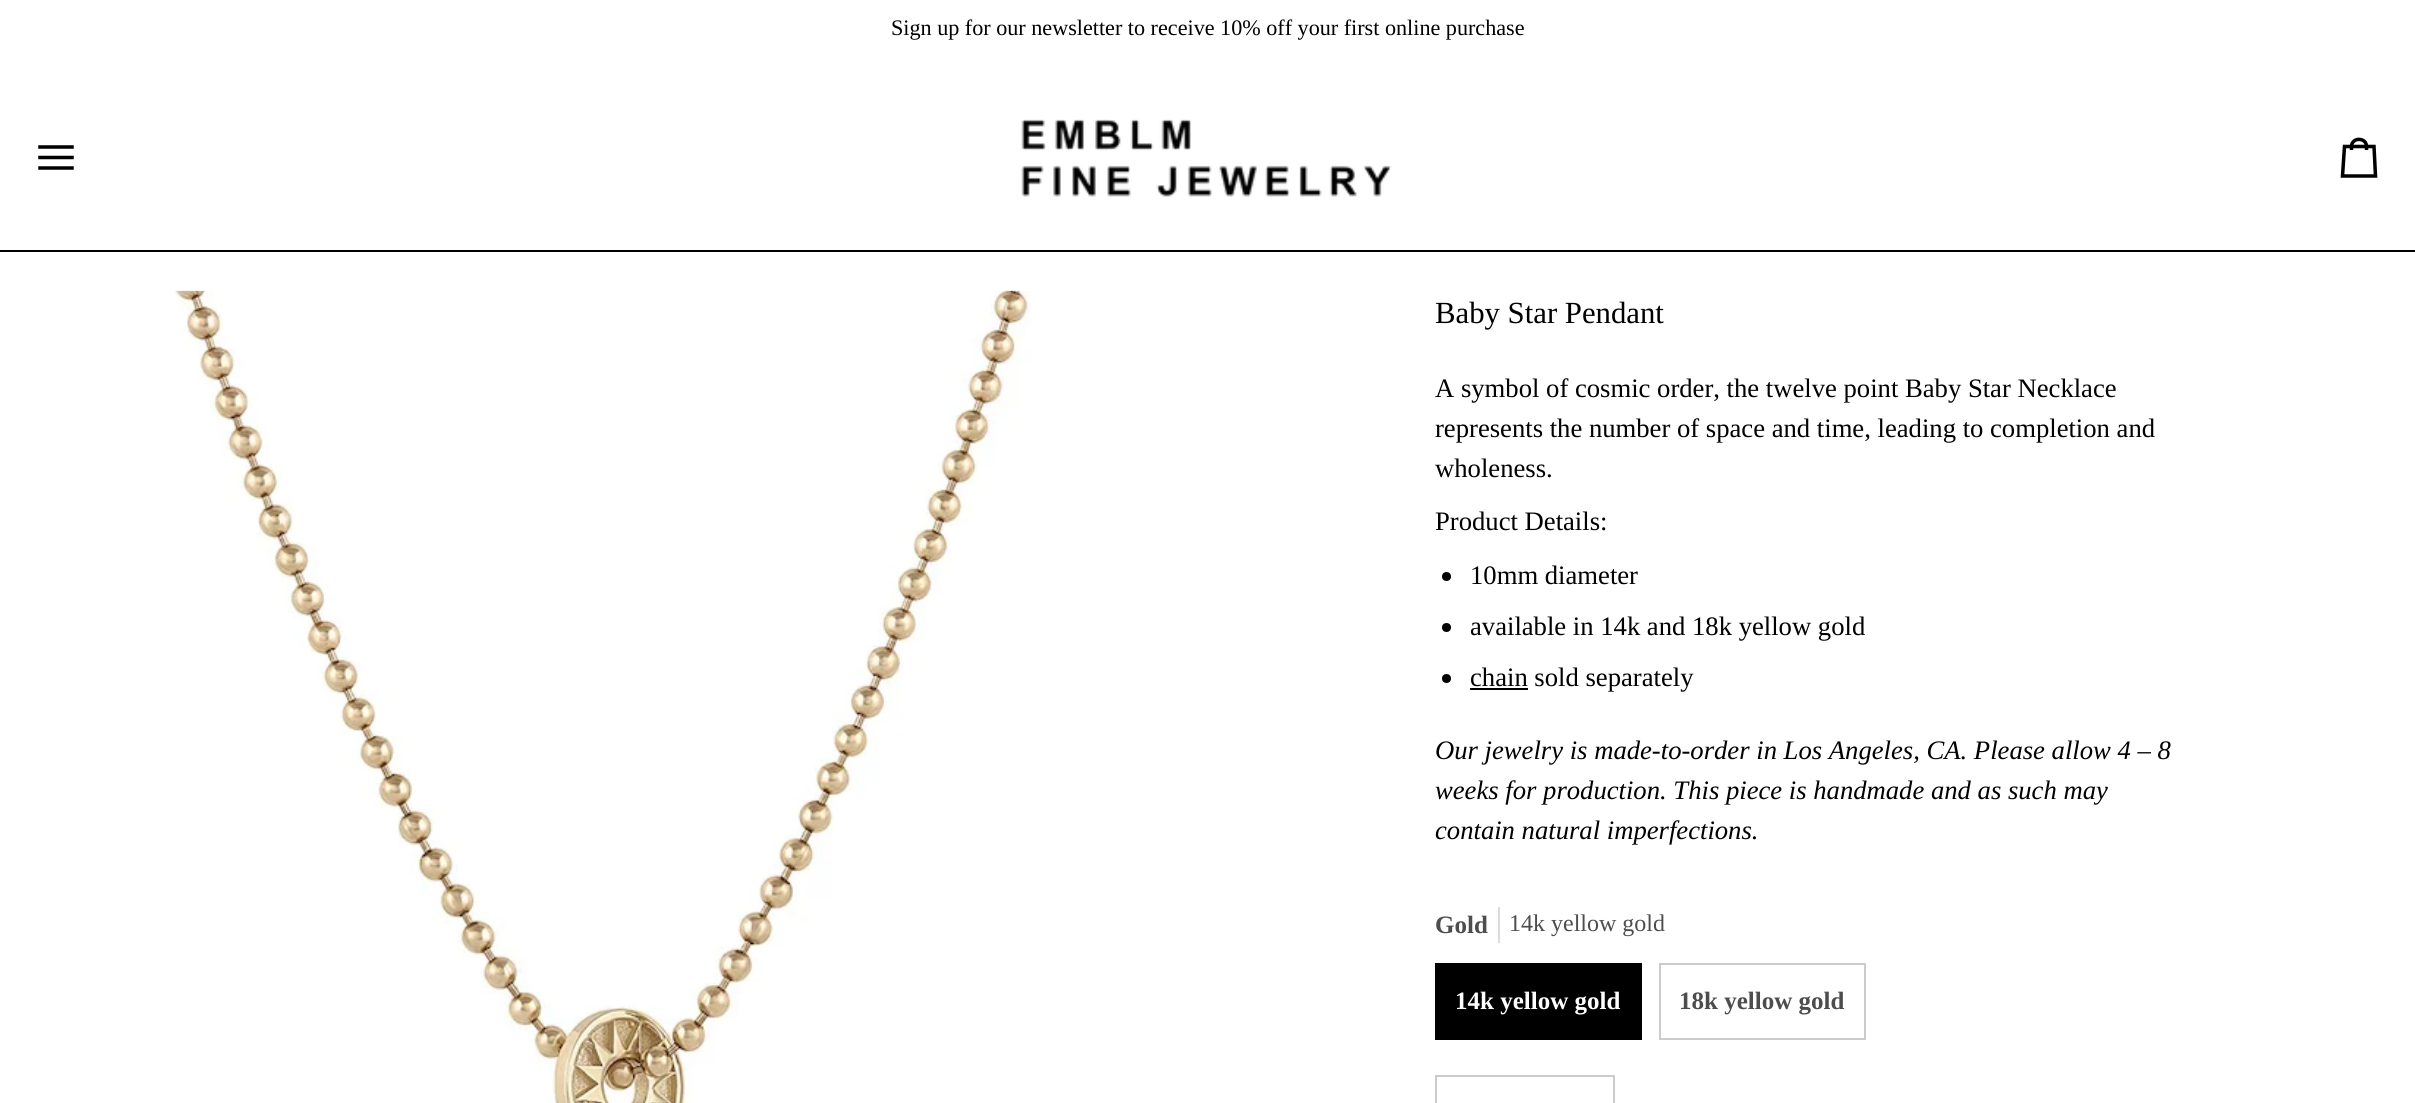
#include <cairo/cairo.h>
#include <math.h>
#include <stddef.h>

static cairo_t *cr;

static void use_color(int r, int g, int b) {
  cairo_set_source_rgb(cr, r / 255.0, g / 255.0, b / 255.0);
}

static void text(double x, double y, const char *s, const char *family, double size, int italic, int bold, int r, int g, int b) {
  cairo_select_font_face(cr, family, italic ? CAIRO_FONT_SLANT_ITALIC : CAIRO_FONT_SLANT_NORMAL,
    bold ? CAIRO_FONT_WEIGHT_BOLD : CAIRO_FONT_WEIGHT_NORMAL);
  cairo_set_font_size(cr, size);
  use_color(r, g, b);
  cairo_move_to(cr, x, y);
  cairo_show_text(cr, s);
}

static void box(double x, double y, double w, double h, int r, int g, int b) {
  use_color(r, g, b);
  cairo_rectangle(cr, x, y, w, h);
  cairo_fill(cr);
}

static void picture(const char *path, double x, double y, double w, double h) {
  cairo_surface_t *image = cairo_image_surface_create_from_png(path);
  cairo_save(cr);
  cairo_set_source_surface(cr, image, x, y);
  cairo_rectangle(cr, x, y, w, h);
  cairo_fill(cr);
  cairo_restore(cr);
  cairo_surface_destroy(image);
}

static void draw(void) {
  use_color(255, 255, 255);
  cairo_paint(cr);
  box(0, 250, 2415, 2, 0, 0, 0);
  cairo_new_path(cr);
  cairo_move_to(cr, 72, 147);
  cairo_line_to(cr, 40, 147);
  cairo_move_to(cr, 72, 157.5);
  cairo_line_to(cr, 40, 157.5);
  cairo_move_to(cr, 72, 168);
  cairo_line_to(cr, 40, 168);
  cairo_set_line_width(cr, 3.5);
  cairo_set_line_cap(cr, CAIRO_LINE_CAP_SQUARE);
  cairo_stroke(cr);
  picture("img_01.png", 1021, 119, 371, 78);
  cairo_new_path(cr);
  cairo_move_to(cr, 2366.5, 150);
  cairo_line_to(cr, 2366.5, 146.5);
  cairo_line_to(cr, 2374, 146.5);
  cairo_line_to(cr, 2375.5, 176);
  cairo_line_to(cr, 2342.5, 176);
  cairo_line_to(cr, 2344.5, 146.5);
  cairo_line_to(cr, 2351.5, 146.5);
  cairo_curve_to(cr, 2351.5, 137, 2366.5, 137, 2366.5, 146.5);
  cairo_line_to(cr, 2351.5, 146.5);
  cairo_line_to(cr, 2351.5, 150);
  cairo_set_line_cap(cr, CAIRO_LINE_CAP_BUTT);
  cairo_stroke(cr);
  picture("img_02.png", 174, 290, 857, 813);
  cairo_arc(cr, 1446.5, 576.5, 4.5, 0, 2 * M_PI);
  cairo_fill(cr);
  cairo_arc(cr, 1446.5, 627.5, 4.5, 0, 2 * M_PI);
  cairo_fill(cr);
  cairo_arc(cr, 1446.5, 678.5, 4.5, 0, 2 * M_PI);
  cairo_fill(cr);
  box(1470, 688, 58, 2, 0, 0, 0);
  box(1498, 907, 2, 36, 219, 219, 219);
  box(1435, 963, 207, 77, 0, 0, 0);
  cairo_rectangle(cr, 1660, 964, 205, 75);
  use_color(204, 204, 204);
  cairo_set_line_width(cr, 2);
  cairo_stroke(cr);
  cairo_rectangle(cr, 1436, 1076, 178, 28);
  cairo_stroke(cr);
  text(891, 35, "Sign up for our newsletter to receive 10% off your first online purchase", "Liberation Serif", 22.15, 0, 0, 0, 0, 0);
  text(1435, 323, "Baby Star Pendant", "Liberation Serif", 30.75, 0, 0, 0, 0, 0);
  text(1435, 397, "A symbol of cosmic order, the twelve point Baby Star Necklace", "Liberation Serif", 26.65, 0, 0, 0, 0, 0);
  text(1435, 437, "represents the number of space and time, leading to completion and", "Liberation Serif", 26.65, 0, 0, 0, 0, 0);
  text(1435, 477, "wholeness.", "Liberation Serif", 26.65, 0, 0, 0, 0, 0);
  text(1435, 530, "Product Details:", "Liberation Serif", 26.65, 0, 0, 0, 0, 0);
  text(1470, 584, "10mm diameter", "Liberation Serif", 26.65, 0, 0, 0, 0, 0);
  text(1470, 635, "available in 14k and 18k yellow gold", "Liberation Serif", 26.65, 0, 0, 0, 0, 0);
  text(1470, 686, "chain sold separately", "Liberation Serif", 26.65, 0, 0, 0, 0, 0);
  text(1435, 759, "Our jewelry is made-to-order in Los Angeles, CA. Please allow 4 – 8", "Liberation Serif", 26.65, 1, 0, 0, 0, 0);
  text(1435, 799, "weeks for production. This piece is handmade and as such may", "Liberation Serif", 26.65, 1, 0, 0, 0, 0);
  text(1435, 839, "contain natural imperfections.", "Liberation Serif", 26.65, 1, 0, 0, 0, 0);
  text(1435, 933, "Gold", "Liberation Serif", 25, 0, 1, 77, 77, 77);
  text(1509, 931, "14k yellow gold", "Liberation Serif", 24, 0, 0, 77, 77, 77);
  text(1455, 1009, "14k yellow gold", "Liberation Serif", 25, 0, 1, 255, 255, 255);
  text(1679, 1009, "18k yellow gold", "Liberation Serif", 25, 0, 1, 77, 77, 77);
}

int main(void) {
  cairo_surface_t *surface = cairo_image_surface_create(CAIRO_FORMAT_RGB24, 2415, 1103);
  cr = cairo_create(surface);
  cairo_font_options_t *options = cairo_font_options_create();
  cairo_font_options_set_hint_metrics(options, CAIRO_HINT_METRICS_OFF);
  cairo_font_options_set_hint_style(options, CAIRO_HINT_STYLE_NONE);
  cairo_set_font_options(cr, options);
  cairo_set_miter_limit(cr, 4);
  draw();
  cairo_surface_write_to_png(surface, "out.png");
  cairo_font_options_destroy(options);
  cairo_destroy(cr);
  cairo_surface_destroy(surface);
  return 0;
}
